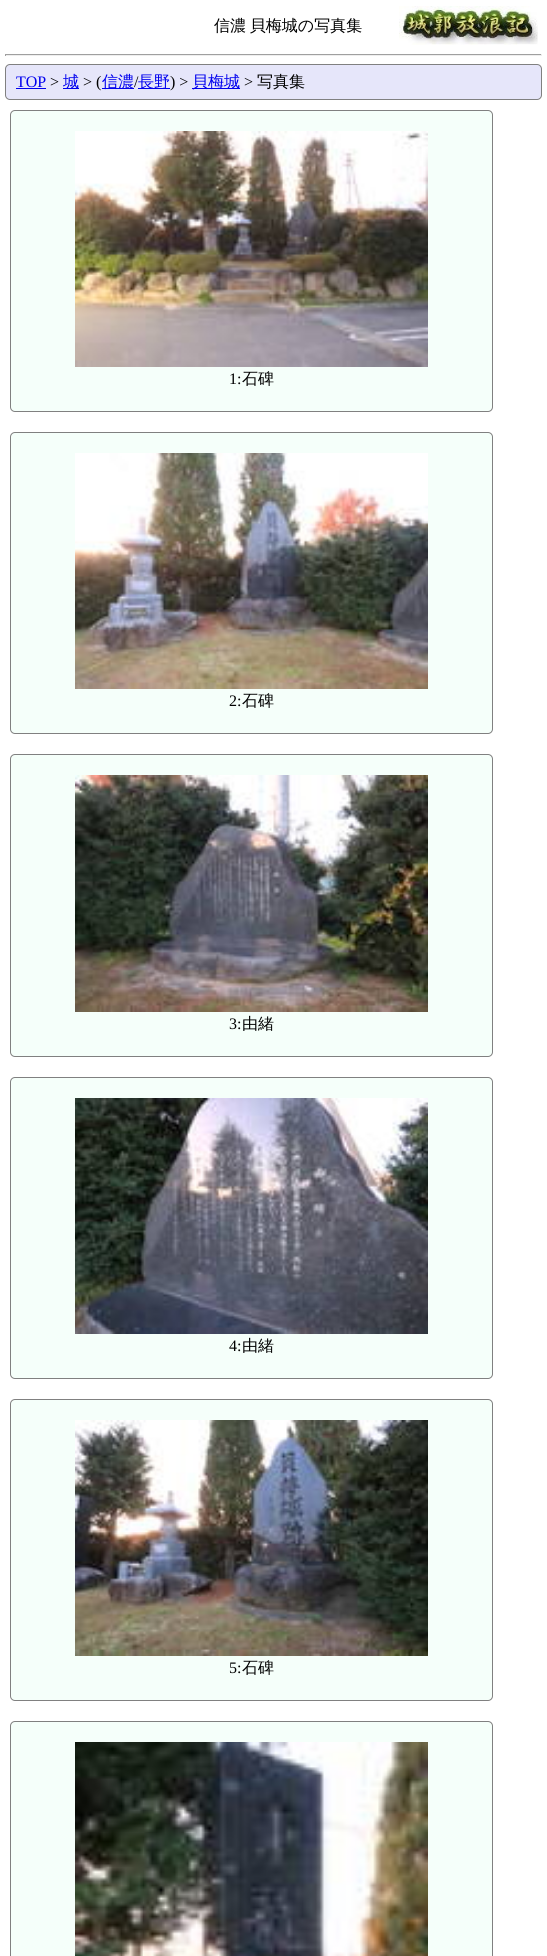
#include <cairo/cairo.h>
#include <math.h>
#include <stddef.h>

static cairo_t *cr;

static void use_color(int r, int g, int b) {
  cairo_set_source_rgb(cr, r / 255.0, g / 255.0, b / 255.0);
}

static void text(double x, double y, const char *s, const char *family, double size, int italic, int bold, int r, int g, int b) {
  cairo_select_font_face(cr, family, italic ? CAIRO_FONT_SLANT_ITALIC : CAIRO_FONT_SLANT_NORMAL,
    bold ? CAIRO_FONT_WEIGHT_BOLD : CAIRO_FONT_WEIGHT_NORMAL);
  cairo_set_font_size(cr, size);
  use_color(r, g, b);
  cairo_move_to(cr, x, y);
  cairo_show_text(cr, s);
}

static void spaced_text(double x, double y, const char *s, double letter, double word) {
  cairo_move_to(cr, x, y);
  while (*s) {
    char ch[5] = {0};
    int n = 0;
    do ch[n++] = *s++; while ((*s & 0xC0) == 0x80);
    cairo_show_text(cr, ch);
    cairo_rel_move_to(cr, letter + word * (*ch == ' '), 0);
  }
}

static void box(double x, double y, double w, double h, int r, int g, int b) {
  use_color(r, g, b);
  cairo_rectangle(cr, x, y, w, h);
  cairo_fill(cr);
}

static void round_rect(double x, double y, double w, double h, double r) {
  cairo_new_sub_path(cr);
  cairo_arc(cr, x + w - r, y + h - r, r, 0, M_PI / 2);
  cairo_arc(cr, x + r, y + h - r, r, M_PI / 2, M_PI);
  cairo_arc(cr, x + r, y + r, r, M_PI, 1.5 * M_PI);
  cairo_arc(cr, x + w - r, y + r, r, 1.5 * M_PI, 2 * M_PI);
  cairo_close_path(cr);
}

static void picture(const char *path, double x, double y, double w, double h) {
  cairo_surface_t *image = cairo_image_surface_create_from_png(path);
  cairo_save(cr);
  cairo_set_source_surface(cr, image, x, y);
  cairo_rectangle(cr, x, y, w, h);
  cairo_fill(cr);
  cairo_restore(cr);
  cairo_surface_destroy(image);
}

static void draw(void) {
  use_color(255, 255, 255);
  cairo_paint(cr);
  picture("img_01.png", 399, 6, 139, 39);
  box(5, 54, 537, 1, 159, 159, 159);
  box(541, 54, 1, 2, 238, 238, 238);
  box(5, 55, 537, 1, 238, 238, 238);
  box(5, 54, 1, 2, 159, 159, 159);
  use_color(230, 230, 250);
  round_rect(5.5, 64.5, 536, 35, 4.5);
  cairo_fill_preserve(cr);
  use_color(128, 128, 128);
  cairo_set_line_width(cr, 1);
  cairo_stroke(cr);
  box(16, 88, 30, 1, 0, 0, 238);
  box(63, 88, 16, 1, 0, 0, 238);
  box(102, 88, 32, 1, 0, 0, 238);
  box(138, 88, 32, 1, 0, 0, 238);
  box(192, 88, 48, 1, 0, 0, 238);
  use_color(245, 255, 250);
  round_rect(10.5, 110.5, 482, 301, 4.5);
  cairo_fill_preserve(cr);
  use_color(128, 128, 128);
  cairo_stroke(cr);
  picture("img_02.png", 75, 131, 353, 236);
  use_color(245, 255, 250);
  round_rect(10.5, 432.5, 482, 301, 4.5);
  cairo_fill_preserve(cr);
  use_color(128, 128, 128);
  cairo_stroke(cr);
  picture("img_03.png", 75, 453, 353, 236);
  use_color(245, 255, 250);
  round_rect(10.5, 754.5, 482, 302, 4.5);
  cairo_fill_preserve(cr);
  use_color(128, 128, 128);
  cairo_stroke(cr);
  picture("img_04.png", 75, 775, 353, 237);
  use_color(245, 255, 250);
  round_rect(10.5, 1077.5, 482, 301, 4.5);
  cairo_fill_preserve(cr);
  use_color(128, 128, 128);
  cairo_stroke(cr);
  picture("img_05.png", 75, 1098, 353, 236);
  use_color(245, 255, 250);
  round_rect(10.5, 1399.5, 482, 301, 4.5);
  cairo_fill_preserve(cr);
  use_color(128, 128, 128);
  cairo_stroke(cr);
  picture("img_06.png", 75, 1420, 353, 236);
  use_color(245, 255, 250);
  round_rect(10.5, 1721.5, 482, 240, 4.5);
  cairo_fill_preserve(cr);
  use_color(128, 128, 128);
  cairo_stroke(cr);
  picture("img_07.png", 75, 1742, 353, 214);
  cairo_select_font_face(cr, "WenQuanYi Zen Hei Medium", CAIRO_FONT_SLANT_NORMAL, CAIRO_FONT_WEIGHT_NORMAL);
  cairo_set_font_size(cr, 16);
  use_color(0, 0, 0);
  spaced_text(214, 31, "信濃 貝梅城の写真集", 0, -1);
  text(16, 87, "TOP", "Liberation Serif", 16, 0, 0, 0, 0, 238);
  text(50, 87, ">", "Liberation Serif", 16, 0, 0, 0, 0, 0);
  text(63, 87, "城", "WenQuanYi Zen Hei Medium", 16, 0, 0, 0, 0, 238);
  text(83, 87, "> (", "Liberation Serif", 16, 0, 0, 0, 0, 0);
  text(102, 87, "信濃", "WenQuanYi Zen Hei Medium", 16, 0, 0, 0, 0, 238);
  text(134, 87, "/", "Liberation Serif", 16, 0, 0, 0, 0, 0);
  text(138, 87, "長野", "WenQuanYi Zen Hei Medium", 16, 0, 0, 0, 0, 238);
  text(170, 87, ") >", "Liberation Serif", 16, 0, 0, 0, 0, 0);
  text(192, 87, "貝梅城", "WenQuanYi Zen Hei Medium", 16, 0, 0, 0, 0, 238);
  text(244, 87, ">", "Liberation Serif", 16, 0, 0, 0, 0, 0);
  text(257, 87, "写真集", "WenQuanYi Zen Hei Medium", 16, 0, 0, 0, 0, 0);
  text(229, 384, "1:", "Liberation Serif", 16, 0, 0, 0, 0, 0);
  text(242, 384, "石碑", "WenQuanYi Zen Hei Medium", 16, 0, 0, 0, 0, 0);
  text(229, 706, "2:", "Liberation Serif", 16, 0, 0, 0, 0, 0);
  text(242, 706, "石碑", "WenQuanYi Zen Hei Medium", 16, 0, 0, 0, 0, 0);
  text(229, 1029, "3:", "Liberation Serif", 16, 0, 0, 0, 0, 0);
  text(242, 1029, "由緒", "WenQuanYi Zen Hei Medium", 16, 0, 0, 0, 0, 0);
  text(229, 1351, "4:", "Liberation Serif", 16, 0, 0, 0, 0, 0);
  text(242, 1351, "由緒", "WenQuanYi Zen Hei Medium", 16, 0, 0, 0, 0, 0);
  text(229, 1673, "5:", "Liberation Serif", 16, 0, 0, 0, 0, 0);
  text(242, 1673, "石碑", "WenQuanYi Zen Hei Medium", 16, 0, 0, 0, 0, 0);
}

int main(void) {
  cairo_surface_t *surface = cairo_image_surface_create(CAIRO_FORMAT_RGB24, 547, 1956);
  cr = cairo_create(surface);
  cairo_font_options_t *options = cairo_font_options_create();
  cairo_font_options_set_hint_metrics(options, CAIRO_HINT_METRICS_OFF);
  cairo_font_options_set_hint_style(options, CAIRO_HINT_STYLE_NONE);
  cairo_set_font_options(cr, options);
  cairo_set_miter_limit(cr, 4);
  draw();
  cairo_surface_write_to_png(surface, "out.png");
  cairo_font_options_destroy(options);
  cairo_destroy(cr);
  cairo_surface_destroy(surface);
  return 0;
}
